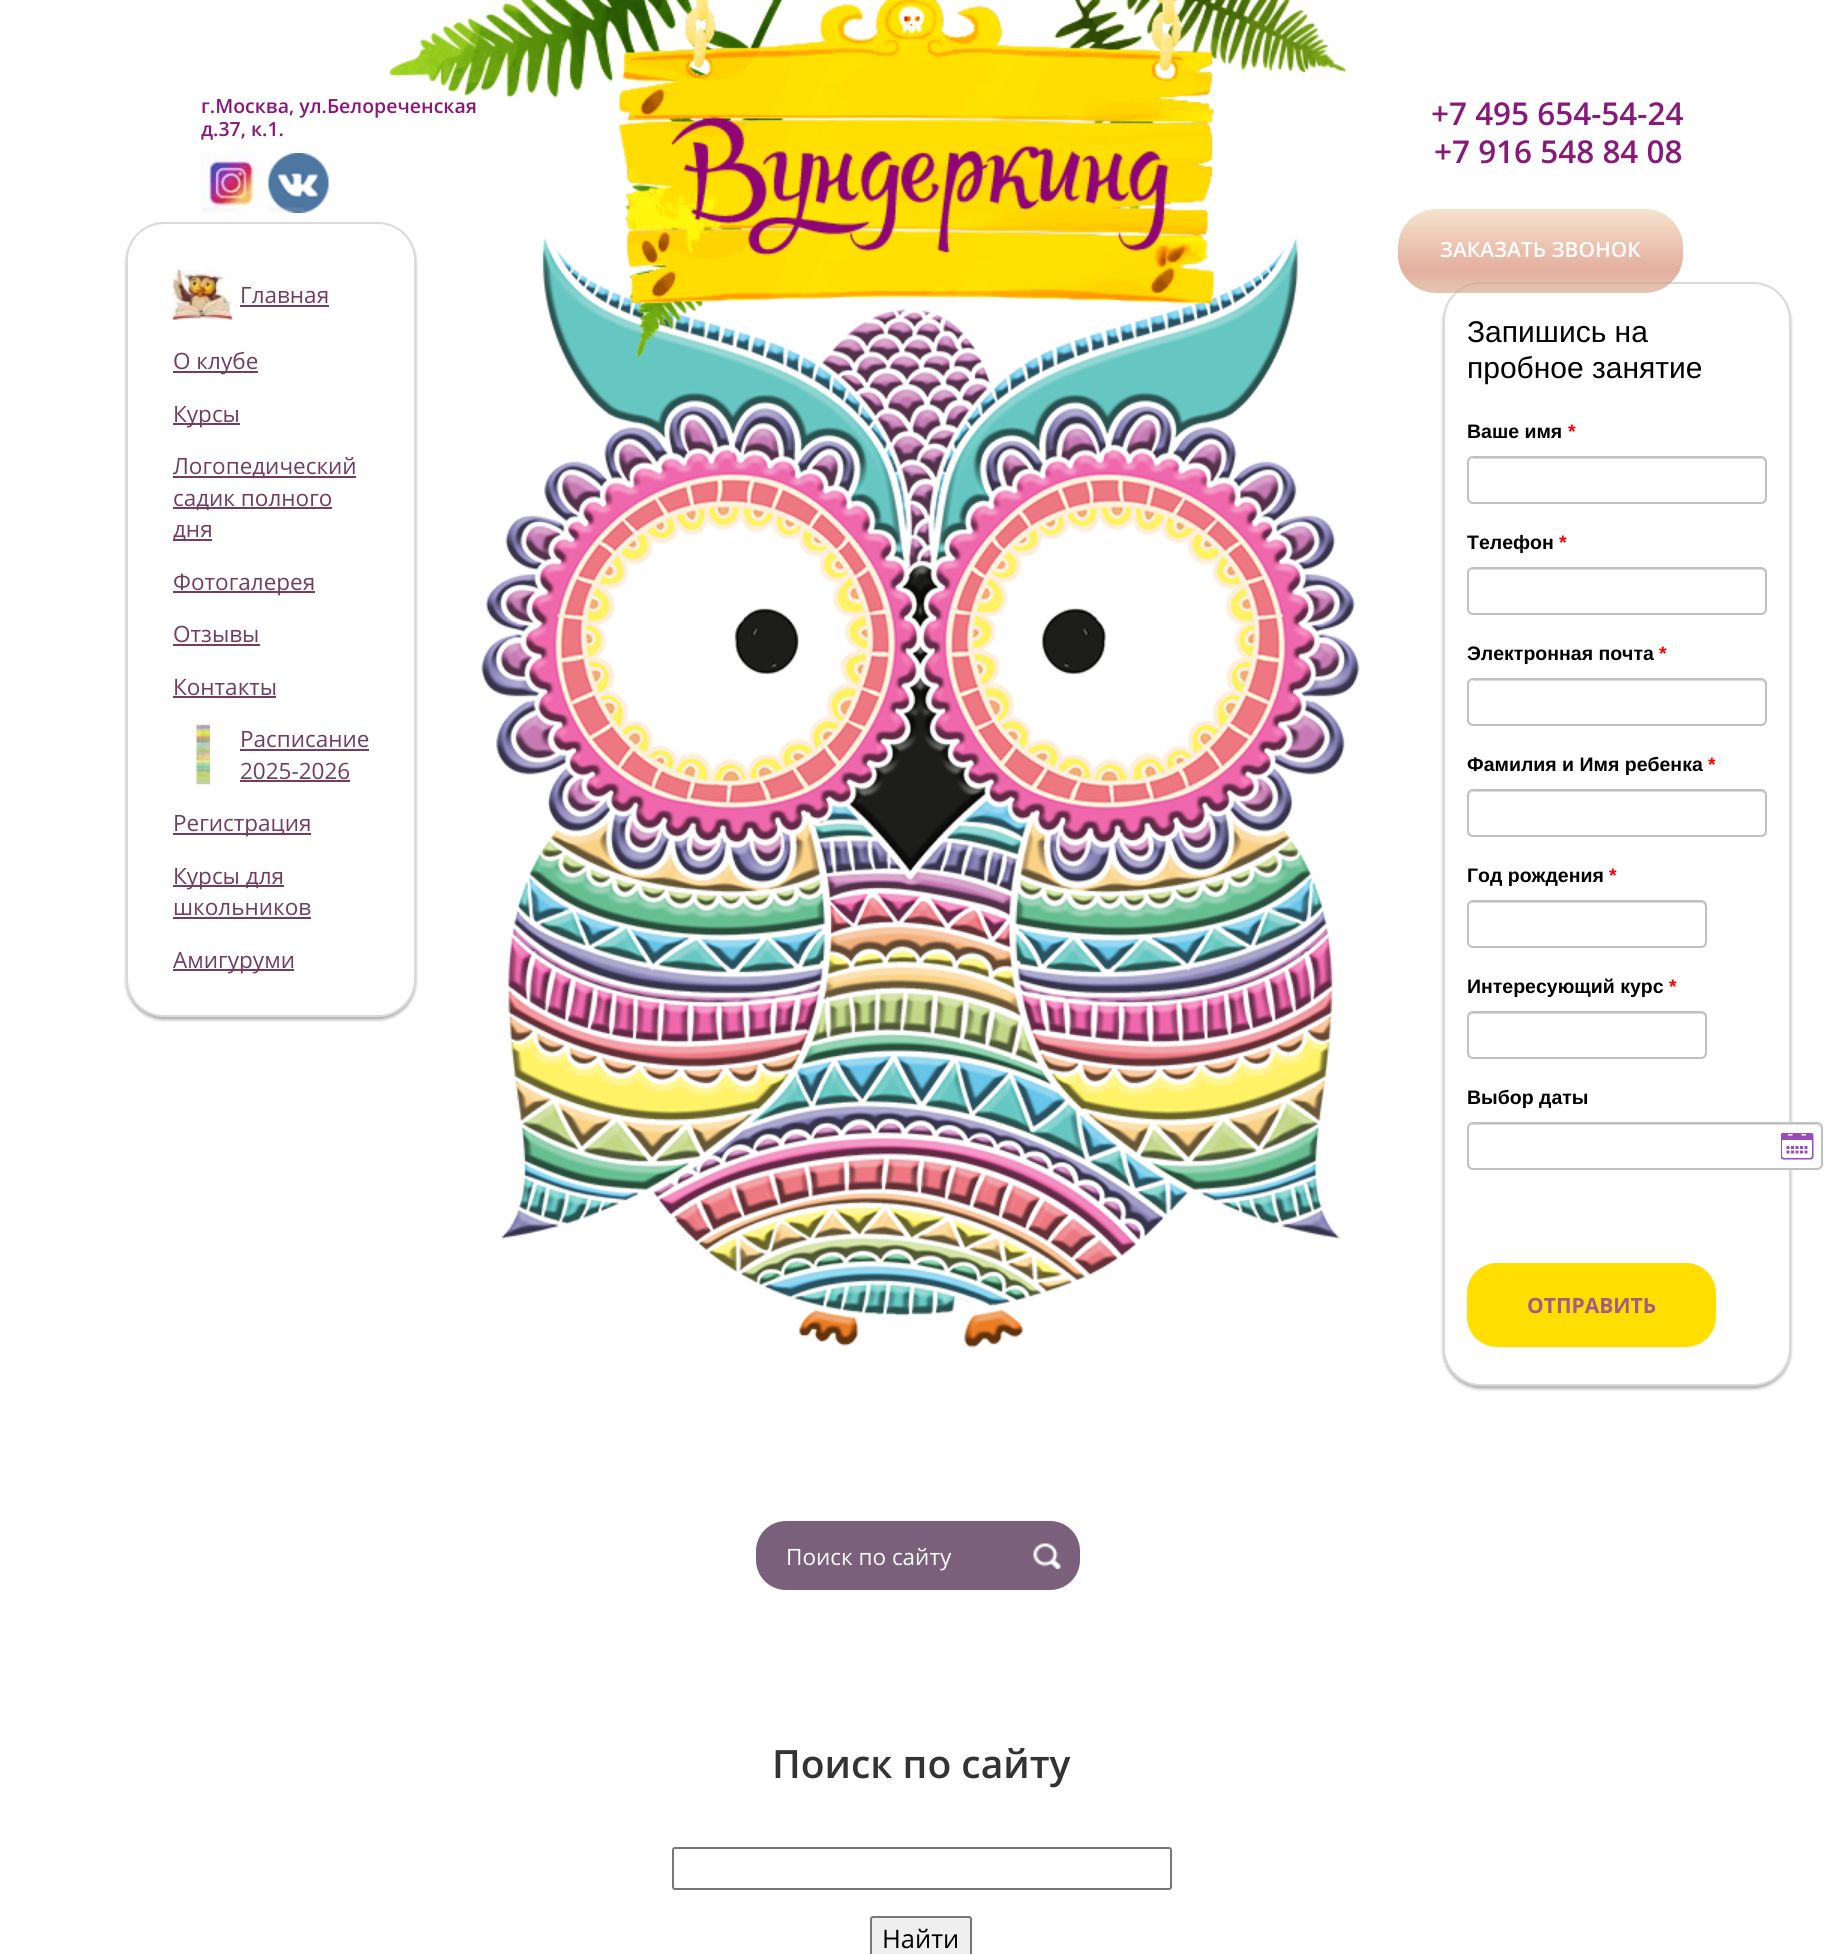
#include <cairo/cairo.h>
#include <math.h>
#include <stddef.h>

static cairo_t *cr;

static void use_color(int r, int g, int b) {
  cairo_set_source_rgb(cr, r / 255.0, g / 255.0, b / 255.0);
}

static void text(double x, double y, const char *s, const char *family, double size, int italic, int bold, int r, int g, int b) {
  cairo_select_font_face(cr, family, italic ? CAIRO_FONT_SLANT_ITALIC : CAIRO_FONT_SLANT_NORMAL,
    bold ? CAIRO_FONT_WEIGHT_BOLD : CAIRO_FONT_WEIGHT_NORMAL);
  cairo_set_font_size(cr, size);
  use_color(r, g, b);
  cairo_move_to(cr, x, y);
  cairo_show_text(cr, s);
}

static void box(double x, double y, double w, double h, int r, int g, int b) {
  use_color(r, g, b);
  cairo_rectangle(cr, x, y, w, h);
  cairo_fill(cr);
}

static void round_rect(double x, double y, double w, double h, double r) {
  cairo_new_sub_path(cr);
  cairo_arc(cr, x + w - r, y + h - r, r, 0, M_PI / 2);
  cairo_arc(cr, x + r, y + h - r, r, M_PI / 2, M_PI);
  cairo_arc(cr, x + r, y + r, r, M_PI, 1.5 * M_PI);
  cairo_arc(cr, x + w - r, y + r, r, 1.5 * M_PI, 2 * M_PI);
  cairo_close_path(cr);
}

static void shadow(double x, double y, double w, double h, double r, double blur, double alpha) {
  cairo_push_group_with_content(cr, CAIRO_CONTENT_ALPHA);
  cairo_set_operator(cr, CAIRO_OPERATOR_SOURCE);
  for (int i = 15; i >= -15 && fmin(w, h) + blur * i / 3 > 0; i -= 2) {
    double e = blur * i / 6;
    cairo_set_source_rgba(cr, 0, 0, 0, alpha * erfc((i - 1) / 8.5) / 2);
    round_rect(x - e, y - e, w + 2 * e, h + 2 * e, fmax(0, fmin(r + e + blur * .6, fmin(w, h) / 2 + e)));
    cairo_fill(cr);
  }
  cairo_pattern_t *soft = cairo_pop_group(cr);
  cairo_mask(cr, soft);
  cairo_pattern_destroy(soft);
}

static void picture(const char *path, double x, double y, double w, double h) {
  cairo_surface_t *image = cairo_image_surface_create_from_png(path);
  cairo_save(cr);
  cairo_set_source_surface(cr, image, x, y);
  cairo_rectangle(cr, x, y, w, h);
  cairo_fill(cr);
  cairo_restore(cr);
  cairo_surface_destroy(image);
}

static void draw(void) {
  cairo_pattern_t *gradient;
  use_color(255, 255, 255);
  cairo_paint(cr);
  picture("img_01.png", 481, 238, 879, 1110);
  picture("img_02.png", 388, 0, 958, 359);
  picture("img_03.png", 201, 153, 60, 60);
  picture("img_04.png", 268, 153, 61, 60);
  use_color(0, 0, 0);
  shadow(1443, 285, 348, 1104, 38, 1.5, 0.3);
  use_color(255, 255, 255);
  round_rect(1443, 282, 348, 1104, 38);
  cairo_fill(cr);
  round_rect(1444, 283, 346, 1102, 37);
  cairo_set_source_rgba(cr, 0, 0, 0, 0.15);
  cairo_stroke(cr);
  gradient = cairo_pattern_create_linear(1541, 293, 1541, 209);
  cairo_pattern_add_color_stop_rgba(gradient, 0, 0.835, 0.675, 0.573, 0.69);
  cairo_pattern_add_color_stop_rgba(gradient, 0.28, 0.851, 0.545, 0.455, 0.69);
  cairo_pattern_add_color_stop_rgba(gradient, 1, 0.941, 0.843, 0.718, 0.69);
  cairo_set_source(cr, gradient);
  cairo_pattern_destroy(gradient);
  round_rect(1398, 209, 285, 84, 38);
  cairo_fill(cr);
  use_color(0, 0, 0);
  shadow(126, 225, 290, 795, 38, 1.5, 0.3);
  use_color(255, 255, 255);
  round_rect(126, 222, 290, 795, 38);
  cairo_fill(cr);
  round_rect(127, 223, 288, 793, 37);
  cairo_set_source_rgba(cr, 0, 0, 0, 0.15);
  cairo_stroke(cr);
  picture("img_05.png", 172, 270, 61, 50);
  box(240, 305, 89, 2, 114, 62, 93);
  box(173, 371, 85, 2, 114, 62, 93);
  box(173, 423, 67, 2, 114, 62, 93);
  box(173, 476, 183, 2, 114, 62, 93);
  box(173, 507, 159, 2, 114, 62, 93);
  box(173, 539, 39, 2, 114, 62, 93);
  box(173, 591, 142, 2, 114, 62, 93);
  box(173, 644, 87, 2, 114, 62, 93);
  box(173, 696, 103, 2, 114, 62, 93);
  picture("img_06.png", 196, 724, 14, 61);
  box(240, 749, 129, 2, 114, 62, 93);
  box(240, 780, 110, 2, 114, 62, 93);
  box(173, 833, 138, 2, 114, 62, 93);
  box(173, 885, 111, 2, 114, 62, 93);
  box(173, 917, 138, 2, 114, 62, 93);
  box(173, 969, 121, 2, 114, 62, 93);
  use_color(217, 217, 217);
  cairo_new_path(cr);
  cairo_move_to(cr, 1473, 459);
  cairo_line_to(cr, 1762, 459);
  cairo_line_to(cr, 1765, 461);
  cairo_line_to(cr, 1766, 464);
  cairo_curve_to(cr, 1766, 461, 1764, 458, 1761, 458);
  cairo_line_to(cr, 1474, 458);
  cairo_line_to(cr, 1472, 459);
  cairo_line_to(cr, 1470, 460);
  cairo_close_path(cr);
  cairo_fill(cr);
  round_rect(1468, 457, 298, 46, 5);
  use_color(192, 192, 192);
  cairo_stroke(cr);
  use_color(217, 217, 217);
  cairo_new_path(cr);
  cairo_move_to(cr, 1473, 570);
  cairo_line_to(cr, 1761, 570);
  cairo_curve_to(cr, 1763, 570, 1766, 572, 1766, 574);
  cairo_curve_to(cr, 1766, 571, 1764, 569, 1761, 569);
  cairo_line_to(cr, 1474, 569);
  cairo_curve_to(cr, 1472, 569, 1471, 570, 1470, 571);
  cairo_close_path(cr);
  cairo_fill(cr);
  round_rect(1468, 568, 298, 46, 5);
  use_color(192, 192, 192);
  cairo_stroke(cr);
  use_color(217, 217, 217);
  cairo_new_path(cr);
  cairo_move_to(cr, 1473, 681);
  cairo_line_to(cr, 1762, 681);
  cairo_line_to(cr, 1765, 683);
  cairo_line_to(cr, 1766, 686);
  cairo_curve_to(cr, 1766, 683, 1764, 680, 1761, 680);
  cairo_line_to(cr, 1474, 680);
  cairo_line_to(cr, 1472, 681);
  cairo_line_to(cr, 1470, 682);
  cairo_close_path(cr);
  cairo_fill(cr);
  round_rect(1468, 679, 298, 46, 5);
  use_color(192, 192, 192);
  cairo_stroke(cr);
  use_color(217, 217, 217);
  cairo_new_path(cr);
  cairo_move_to(cr, 1473, 792);
  cairo_line_to(cr, 1761, 792);
  cairo_curve_to(cr, 1763, 792, 1766, 794, 1766, 796);
  cairo_curve_to(cr, 1766, 793, 1764, 791, 1761, 791);
  cairo_line_to(cr, 1474, 791);
  cairo_curve_to(cr, 1472, 791, 1471, 792, 1470, 793);
  cairo_close_path(cr);
  cairo_fill(cr);
  round_rect(1468, 790, 298, 46, 5);
  use_color(192, 192, 192);
  cairo_stroke(cr);
  use_color(217, 217, 217);
  cairo_new_path(cr);
  cairo_move_to(cr, 1473, 903);
  cairo_line_to(cr, 1701, 903);
  cairo_curve_to(cr, 1703, 903, 1706, 905, 1706, 908);
  cairo_line_to(cr, 1706, 907);
  cairo_curve_to(cr, 1706, 904, 1704, 902, 1701, 902);
  cairo_line_to(cr, 1474, 902);
  cairo_curve_to(cr, 1472, 902, 1471, 903, 1470, 904);
  cairo_close_path(cr);
  cairo_fill(cr);
  round_rect(1468, 901, 238, 46, 5);
  use_color(192, 192, 192);
  cairo_stroke(cr);
  use_color(217, 217, 217);
  cairo_new_path(cr);
  cairo_move_to(cr, 1473, 1014);
  cairo_line_to(cr, 1701, 1014);
  cairo_curve_to(cr, 1703, 1014, 1706, 1016, 1706, 1018);
  cairo_curve_to(cr, 1706, 1015, 1704, 1013, 1701, 1013);
  cairo_line_to(cr, 1474, 1013);
  cairo_curve_to(cr, 1472, 1013, 1471, 1014, 1470, 1015);
  cairo_close_path(cr);
  cairo_fill(cr);
  round_rect(1468, 1012, 238, 46, 5);
  use_color(192, 192, 192);
  cairo_stroke(cr);
  use_color(255, 255, 255);
  round_rect(1467, 1122, 356, 48, 6);
  cairo_fill(cr);
  use_color(217, 217, 217);
  cairo_new_path(cr);
  cairo_move_to(cr, 1473, 1125);
  cairo_line_to(cr, 1816, 1125);
  cairo_curve_to(cr, 1819, 1125, 1821, 1127, 1821, 1130);
  cairo_line_to(cr, 1821, 1129);
  cairo_curve_to(cr, 1821, 1126, 1819, 1124, 1816, 1124);
  cairo_line_to(cr, 1474, 1124);
  cairo_curve_to(cr, 1472, 1124, 1471, 1125, 1470, 1126);
  cairo_close_path(cr);
  cairo_fill(cr);
  round_rect(1468, 1123, 354, 46, 5);
  use_color(192, 192, 192);
  cairo_stroke(cr);
  picture("img_07.png", 1781, 1133, 33, 27);
  use_color(255, 222, 0);
  round_rect(1467, 1263, 249, 84, 30);
  cairo_fill(cr);
  use_color(122, 96, 122);
  round_rect(756, 1521, 324, 69, 30);
  cairo_fill(cr);
  picture("img_08.png", 1033, 1543, 28, 26);
  round_rect(673, 1848, 498, 41, 2);
  use_color(118, 118, 118);
  cairo_stroke(cr);
  use_color(239, 239, 239);
  round_rect(871, 1917, 100, 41, 2);
  cairo_fill_preserve(cr);
  use_color(118, 118, 118);
  cairo_stroke(cr);
  text(201, 113, "г.Москва, ул.Белореченская", "Open Sans SemiBold", 19.5, 0, 0, 136, 24, 122);
  text(201, 136, "д.37, к.1.", "Open Sans SemiBold", 19.5, 0, 0, 136, 24, 122);
  text(1431, 125, "+7 495 654-54-24", "Open Sans SemiBold", 31.5, 0, 0, 136, 24, 122);
  text(1434, 163, "+7 916 548 84 08", "Open Sans SemiBold", 31.5, 0, 0, 136, 24, 122);
  text(1440, 257, "ЗАКАЗАТЬ ЗВОНОК", "Open Sans SemiBold", 21, 0, 0, 255, 255, 255);
  text(240, 303, "Главная", "Open Sans", 22.5, 0, 0, 114, 62, 93);
  text(173, 369, "О клубе", "Open Sans", 22.5, 0, 0, 114, 62, 93);
  text(173, 422, "Курсы", "Open Sans", 22.5, 0, 0, 114, 62, 93);
  text(173, 474, "Логопедический", "Open Sans", 22.5, 0, 0, 114, 62, 93);
  text(173, 506, "садик полного", "Open Sans", 22.5, 0, 0, 114, 62, 93);
  text(173, 537, "дня", "Open Sans", 22.5, 0, 0, 114, 62, 93);
  text(173, 590, "Фотогалерея", "Open Sans", 22.5, 0, 0, 114, 62, 93);
  text(173, 642, "Отзывы", "Open Sans", 22.5, 0, 0, 114, 62, 93);
  text(173, 695, "Контакты", "Open Sans", 22.5, 0, 0, 114, 62, 93);
  text(240, 747, "Расписание", "Open Sans", 22.5, 0, 0, 114, 62, 93);
  text(240, 779, "2025-2026", "Open Sans", 22.5, 0, 0, 114, 62, 93);
  text(173, 831, "Регистрация", "Open Sans", 22.5, 0, 0, 114, 62, 93);
  text(173, 884, "Курсы для", "Open Sans", 22.5, 0, 0, 114, 62, 93);
  text(173, 915, "школьников", "Open Sans", 22.5, 0, 0, 114, 62, 93);
  text(173, 968, "Амигуруми", "Open Sans", 22.5, 0, 0, 114, 62, 93);
  text(1467, 342, "Запишись на", "Liberation Sans", 30, 0, 0, 0, 0, 0);
  text(1467, 378, "пробное занятие", "Liberation Sans", 30, 0, 0, 0, 0, 0);
  text(1467, 438, "Ваше имя", "Liberation Sans", 19.5, 0, 1, 0, 0, 0);
  text(1568, 438, "*", "Liberation Sans", 19.5, 0, 1, 255, 0, 0);
  text(1467, 549, "Телефон", "Liberation Sans", 19.5, 0, 1, 0, 0, 0);
  text(1559, 549, "*", "Liberation Sans", 19.5, 0, 1, 255, 0, 0);
  text(1467, 660, "Электронная почта", "Liberation Sans", 19.5, 0, 1, 0, 0, 0);
  text(1659, 660, "*", "Liberation Sans", 19.5, 0, 1, 255, 0, 0);
  text(1467, 771, "Фамилия и Имя ребенка", "Liberation Sans", 19.5, 0, 1, 0, 0, 0);
  text(1708, 771, "*", "Liberation Sans", 19.5, 0, 1, 255, 0, 0);
  text(1467, 882, "Год рождения", "Liberation Sans", 19.5, 0, 1, 0, 0, 0);
  text(1609, 882, "*", "Liberation Sans", 19.5, 0, 1, 255, 0, 0);
  text(1467, 993, "Интересующий курс", "Liberation Sans", 19.5, 0, 1, 0, 0, 0);
  text(1669, 993, "*", "Liberation Sans", 19.5, 0, 1, 255, 0, 0);
  text(1467, 1104, "Выбор даты", "Liberation Sans", 19.5, 0, 1, 0, 0, 0);
  text(1527, 1313, "ОТПРАВИТЬ", "Open Sans", 21, 0, 1, 166, 90, 135);
  text(786, 1565, "Поиск по сайту", "Open Sans", 22.5, 0, 0, 255, 255, 255);
  text(772, 1778, "Поиск по сайту", "Open Sans SemiBold", 39, 0, 0, 51, 51, 51);
  text(882, 1948, "Найти", "Open Sans", 25.5, 0, 0, 0, 0, 0);
}

int main(void) {
  cairo_surface_t *surface = cairo_image_surface_create(CAIRO_FORMAT_RGB24, 1842, 1954);
  cr = cairo_create(surface);
  cairo_font_options_t *options = cairo_font_options_create();
  cairo_font_options_set_hint_metrics(options, CAIRO_HINT_METRICS_OFF);
  cairo_font_options_set_hint_style(options, CAIRO_HINT_STYLE_NONE);
  cairo_set_font_options(cr, options);
  cairo_set_miter_limit(cr, 4);
  draw();
  cairo_surface_write_to_png(surface, "out.png");
  cairo_font_options_destroy(options);
  cairo_destroy(cr);
  cairo_surface_destroy(surface);
  return 0;
}
